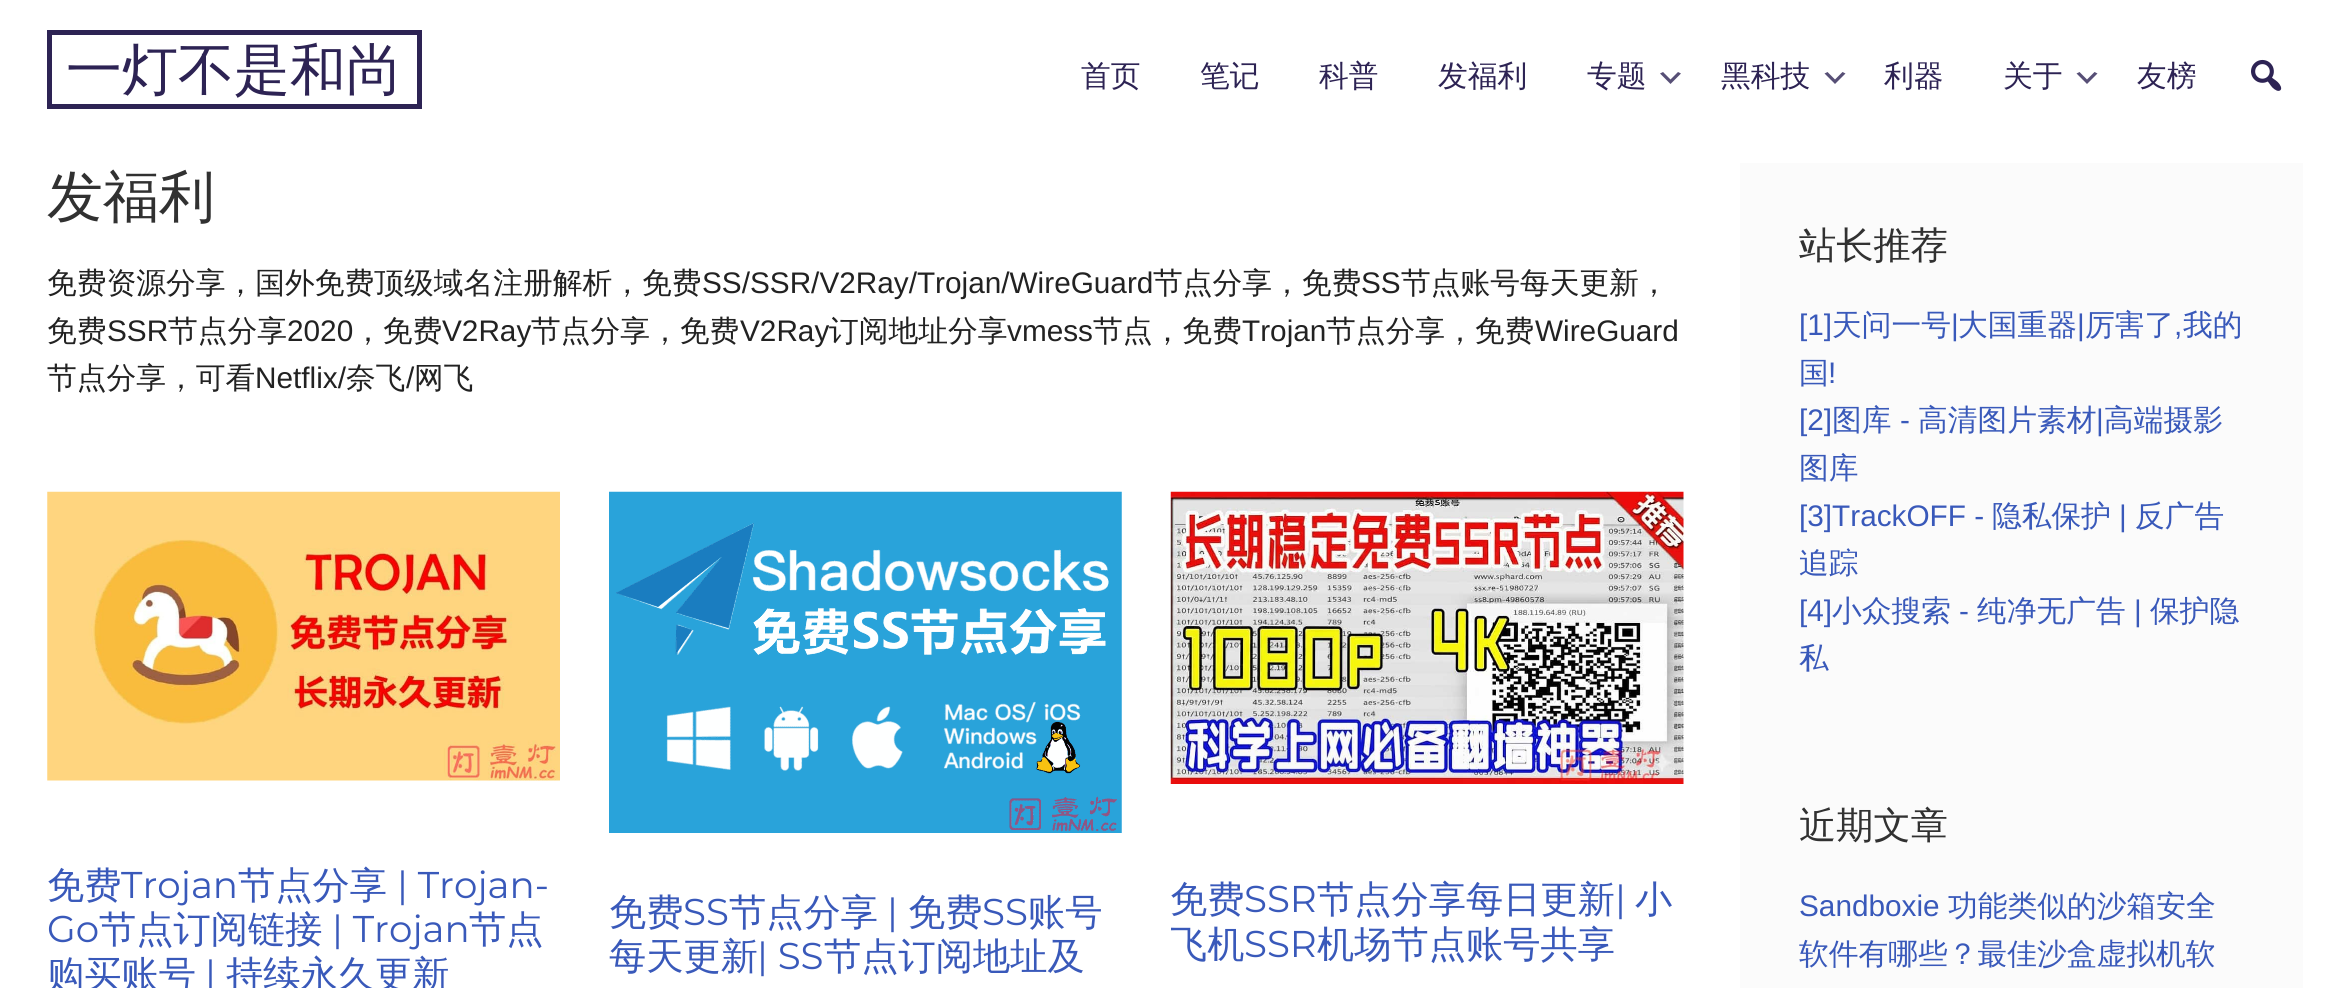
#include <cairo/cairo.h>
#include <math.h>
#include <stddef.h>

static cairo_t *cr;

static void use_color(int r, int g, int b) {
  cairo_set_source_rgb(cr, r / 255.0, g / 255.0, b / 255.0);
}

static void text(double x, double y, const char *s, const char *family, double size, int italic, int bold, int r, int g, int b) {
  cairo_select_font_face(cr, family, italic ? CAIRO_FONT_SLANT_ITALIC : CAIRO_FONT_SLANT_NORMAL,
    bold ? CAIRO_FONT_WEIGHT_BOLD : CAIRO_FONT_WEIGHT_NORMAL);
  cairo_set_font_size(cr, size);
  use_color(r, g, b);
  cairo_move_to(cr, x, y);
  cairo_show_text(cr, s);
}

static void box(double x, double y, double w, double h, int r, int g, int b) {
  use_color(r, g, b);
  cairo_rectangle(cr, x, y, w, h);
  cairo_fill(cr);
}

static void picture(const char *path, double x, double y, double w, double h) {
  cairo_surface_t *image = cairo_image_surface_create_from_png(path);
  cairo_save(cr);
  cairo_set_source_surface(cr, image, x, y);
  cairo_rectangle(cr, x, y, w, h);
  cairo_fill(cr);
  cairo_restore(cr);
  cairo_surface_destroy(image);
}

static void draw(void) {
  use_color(255, 255, 255);
  cairo_paint(cr);
  cairo_rectangle(cr, 49.5, 32.5, 370, 74);
  use_color(45, 35, 84);
  cairo_set_line_width(cr, 5);
  cairo_stroke(cr);
  use_color(87, 79, 118);
  cairo_new_path(cr);
  cairo_move_to(cr, 1663, 72);
  cairo_line_to(cr, 1670.5, 79.5);
  cairo_line_to(cr, 1678, 72);
  cairo_line_to(cr, 1681, 73.5);
  cairo_line_to(cr, 1670.5, 84);
  cairo_line_to(cr, 1660, 73.5);
  cairo_close_path(cr);
  cairo_fill(cr);
  cairo_new_path(cr);
  cairo_move_to(cr, 1827.5, 72);
  cairo_line_to(cr, 1835, 79.5);
  cairo_line_to(cr, 1842.5, 72);
  cairo_line_to(cr, 1845.5, 73.5);
  cairo_line_to(cr, 1835, 84);
  cairo_line_to(cr, 1824.5, 73.5);
  cairo_close_path(cr);
  cairo_fill(cr);
  cairo_new_path(cr);
  cairo_move_to(cr, 2079.5, 72);
  cairo_line_to(cr, 2087, 79.5);
  cairo_line_to(cr, 2094.5, 72);
  cairo_line_to(cr, 2097.5, 73.5);
  cairo_line_to(cr, 2087, 84);
  cairo_line_to(cr, 2076.5, 73.5);
  cairo_close_path(cr);
  cairo_fill(cr);
  picture("img_01.png", 2251, 59, 31, 32);
  picture("img_02.png", 47, 491, 513, 290);
  picture("img_03.png", 609, 491, 513, 342);
  picture("img_04.png", 1170, 491, 514, 293);
  box(1740, 163, 563, 825, 251, 251, 251);
  text(66, 89, "一灯不是和尚", "WenQuanYi Zen Hei Medium", 56, 0, 0, 45, 35, 84);
  text(1081, 86, "首页", "WenQuanYi Zen Hei Medium", 29.75, 0, 0, 45, 35, 84);
  text(1200, 86, "笔记", "WenQuanYi Zen Hei Medium", 29.75, 0, 0, 45, 35, 84);
  text(1319, 86, "科普", "WenQuanYi Zen Hei Medium", 29.75, 0, 0, 45, 35, 84);
  text(1438, 86, "发福利", "WenQuanYi Zen Hei Medium", 29.75, 0, 0, 45, 35, 84);
  text(1587, 86, "专题", "WenQuanYi Zen Hei Medium", 29.75, 0, 0, 45, 35, 84);
  text(1721, 86, "黑科技", "WenQuanYi Zen Hei Medium", 29.75, 0, 0, 45, 35, 84);
  text(1884, 86, "利器", "WenQuanYi Zen Hei Medium", 29.75, 0, 0, 45, 35, 84);
  text(2003, 86, "关于", "WenQuanYi Zen Hei Medium", 29.75, 0, 0, 45, 35, 84);
  text(2137, 86, "友榜", "WenQuanYi Zen Hei Medium", 29.75, 0, 0, 45, 35, 84);
  text(47, 216, "发福利", "WenQuanYi Zen Hei Medium", 56, 0, 0, 49, 49, 49);
  text(47, 293, "免费资源分享，国外免费顶级域名注册解析，免费", "WenQuanYi Zen Hei Medium", 29.75, 0, 0, 34, 34, 34);
  text(702, 293, "SS/SSR/V2Ray/Trojan/WireGuard", "Liberation Sans", 29.75, 0, 0, 34, 34, 34);
  text(1153, 293, "节点分享，免费", "WenQuanYi Zen Hei Medium", 29.75, 0, 0, 34, 34, 34);
  text(1361, 293, "SS", "Liberation Sans", 29.75, 0, 0, 34, 34, 34);
  text(1401, 293, "节点账号每天更新，", "WenQuanYi Zen Hei Medium", 29.75, 0, 0, 34, 34, 34);
  text(47, 341, "免费", "WenQuanYi Zen Hei Medium", 29.75, 0, 0, 34, 34, 34);
  text(107, 341, "SSR", "Liberation Sans", 29.75, 0, 0, 34, 34, 34);
  text(168, 341, "节点分享", "WenQuanYi Zen Hei Medium", 29.75, 0, 0, 34, 34, 34);
  text(287, 341, "2020", "Liberation Sans", 29.75, 0, 0, 34, 34, 34);
  text(353, 341, "，免费", "WenQuanYi Zen Hei Medium", 29.75, 0, 0, 34, 34, 34);
  text(442, 341, "V2Ray", "Liberation Sans", 29.75, 0, 0, 34, 34, 34);
  text(531, 341, "节点分享，免费", "WenQuanYi Zen Hei Medium", 29.75, 0, 0, 34, 34, 34);
  text(740, 341, "V2Ray", "Liberation Sans", 29.75, 0, 0, 34, 34, 34);
  text(829, 341, "订阅地址分享", "WenQuanYi Zen Hei Medium", 29.75, 0, 0, 34, 34, 34);
  text(1007, 341, "vmess", "Liberation Sans", 29.75, 0, 0, 34, 34, 34);
  text(1093, 341, "节点，免费", "WenQuanYi Zen Hei Medium", 29.75, 0, 0, 34, 34, 34);
  text(1242, 341, "Trojan", "Liberation Sans", 29.75, 0, 0, 34, 34, 34);
  text(1326, 341, "节点分享，免费", "WenQuanYi Zen Hei Medium", 29.75, 0, 0, 34, 34, 34);
  text(1535, 341, "WireGuard", "Liberation Sans", 29.75, 0, 0, 34, 34, 34);
  text(47, 388, "节点分享，可看", "WenQuanYi Zen Hei Medium", 29.75, 0, 0, 34, 34, 34);
  text(255, 388, "Netflix/", "Liberation Sans", 29.75, 0, 0, 34, 34, 34);
  text(346, 388, "奈飞", "WenQuanYi Zen Hei Medium", 29.75, 0, 0, 34, 34, 34);
  text(406, 388, "/", "Liberation Sans", 29.75, 0, 0, 34, 34, 34);
  text(414, 388, "网飞", "WenQuanYi Zen Hei Medium", 29.75, 0, 0, 34, 34, 34);
  text(47, 898, "免费", "WenQuanYi Zen Hei Medium", 37.25, 0, 0, 57, 89, 186);
  text(121, 898, "Trojan", "Montserrat", 37.25, 0, 0, 57, 89, 186);
  text(238, 898, "节点分享", "WenQuanYi Zen Hei Medium", 37.25, 0, 0, 57, 89, 186);
  text(397, 898, "| Trojan-", "Montserrat", 37.25, 0, 0, 57, 89, 186);
  text(47, 942, "Go", "Montserrat", 37.25, 0, 0, 57, 89, 186);
  text(99, 942, "节点订阅链接", "WenQuanYi Zen Hei Medium", 37.25, 0, 0, 57, 89, 186);
  text(332, 942, "| Trojan", "Montserrat", 37.25, 0, 0, 57, 89, 186);
  text(469, 942, "节点", "WenQuanYi Zen Hei Medium", 37.25, 0, 0, 57, 89, 186);
  text(47, 987, "购买账号", "WenQuanYi Zen Hei Medium", 37.25, 0, 0, 57, 89, 186);
  text(205, 987, "|", "Montserrat", 37.25, 0, 0, 57, 89, 186);
  text(226, 987, "持续永久更新", "WenQuanYi Zen Hei Medium", 37.25, 0, 0, 57, 89, 186);
  text(609, 925, "免费", "WenQuanYi Zen Hei Medium", 37.25, 0, 0, 57, 89, 186);
  text(683, 925, "SS", "Montserrat", 37.25, 0, 0, 57, 89, 186);
  text(729, 925, "节点分享", "WenQuanYi Zen Hei Medium", 37.25, 0, 0, 57, 89, 186);
  text(887, 925, "|", "Montserrat", 37.25, 0, 0, 57, 89, 186);
  text(908, 925, "免费", "WenQuanYi Zen Hei Medium", 37.25, 0, 0, 57, 89, 186);
  text(982, 925, "SS", "Montserrat", 37.25, 0, 0, 57, 89, 186);
  text(1028, 925, "账号", "WenQuanYi Zen Hei Medium", 37.25, 0, 0, 57, 89, 186);
  text(609, 969, "每天更新", "WenQuanYi Zen Hei Medium", 37.25, 0, 0, 57, 89, 186);
  text(757, 969, "| SS", "Montserrat", 37.25, 0, 0, 57, 89, 186);
  text(824, 969, "节点订阅地址及", "WenQuanYi Zen Hei Medium", 37.25, 0, 0, 57, 89, 186);
  text(1170, 912, "免费", "WenQuanYi Zen Hei Medium", 37.25, 0, 0, 57, 89, 186);
  text(1244, 912, "SSR", "Montserrat", 37.25, 0, 0, 57, 89, 186);
  text(1317, 912, "节点分享每日更新", "WenQuanYi Zen Hei Medium", 37.25, 0, 0, 57, 89, 186);
  text(1615, 912, "|", "Montserrat", 37.25, 0, 0, 57, 89, 186);
  text(1635, 912, "小", "WenQuanYi Zen Hei Medium", 37.25, 0, 0, 57, 89, 186);
  cairo_save(cr);
  cairo_rectangle(cr, 1171, 877, 513, 108);
  cairo_clip(cr);
  text(1170, 957, "飞机", "WenQuanYi Zen Hei Medium", 37.25, 0, 0, 57, 89, 186);
  cairo_restore(cr);
  text(1244, 957, "SSR", "Montserrat", 37.25, 0, 0, 57, 89, 186);
  text(1317, 957, "机场节点账号共享", "WenQuanYi Zen Hei Medium", 37.25, 0, 0, 57, 89, 186);
  text(1799, 258, "站长推荐", "WenQuanYi Zen Hei Medium", 37.25, 0, 0, 49, 49, 49);
  text(1799, 335, "[1]", "Liberation Sans", 29.75, 0, 0, 57, 89, 186);
  text(1832, 335, "天问一号", "WenQuanYi Zen Hei Medium", 29.75, 0, 0, 57, 89, 186);
  text(1951, 335, "|", "Liberation Sans", 29.75, 0, 0, 57, 89, 186);
  text(1958, 335, "大国重器", "WenQuanYi Zen Hei Medium", 29.75, 0, 0, 57, 89, 186);
  text(2077, 335, "|", "Liberation Sans", 29.75, 0, 0, 57, 89, 186);
  text(2085, 335, "厉害了", "WenQuanYi Zen Hei Medium", 29.75, 0, 0, 57, 89, 186);
  text(2174, 335, ",", "Liberation Sans", 29.75, 0, 0, 57, 89, 186);
  text(2183, 335, "我的", "WenQuanYi Zen Hei Medium", 29.75, 0, 0, 57, 89, 186);
  text(1799, 383, "国", "WenQuanYi Zen Hei Medium", 29.75, 0, 0, 57, 89, 186);
  text(1828, 383, "!", "Liberation Sans", 29.75, 0, 0, 57, 89, 186);
  text(1799, 430, "[2]", "Liberation Sans", 29.75, 0, 0, 57, 89, 186);
  text(1832, 430, "图库", "WenQuanYi Zen Hei Medium", 29.75, 0, 0, 57, 89, 186);
  text(1900, 430, "-", "Liberation Sans", 29.75, 0, 0, 57, 89, 186);
  text(1918, 430, "高清图片素材", "WenQuanYi Zen Hei Medium", 29.75, 0, 0, 57, 89, 186);
  text(2096, 430, "|", "Liberation Sans", 29.75, 0, 0, 57, 89, 186);
  text(2104, 430, "高端摄影", "WenQuanYi Zen Hei Medium", 29.75, 0, 0, 57, 89, 186);
  text(1799, 478, "图库", "WenQuanYi Zen Hei Medium", 29.75, 0, 0, 57, 89, 186);
  text(1799, 526, "[3]TrackOFF -", "Liberation Sans", 29.75, 0, 0, 57, 89, 186);
  text(1992, 526, "隐私保护", "WenQuanYi Zen Hei Medium", 29.75, 0, 0, 57, 89, 186);
  text(2119, 526, "|", "Liberation Sans", 29.75, 0, 0, 57, 89, 186);
  text(2135, 526, "反广告", "WenQuanYi Zen Hei Medium", 29.75, 0, 0, 57, 89, 186);
  text(1799, 573, "追踪", "WenQuanYi Zen Hei Medium", 29.75, 0, 0, 57, 89, 186);
  text(1799, 621, "[4]", "Liberation Sans", 29.75, 0, 0, 57, 89, 186);
  text(1832, 621, "小众搜索", "WenQuanYi Zen Hei Medium", 29.75, 0, 0, 57, 89, 186);
  text(1959, 621, "-", "Liberation Sans", 29.75, 0, 0, 57, 89, 186);
  text(1977, 621, "纯净无广告", "WenQuanYi Zen Hei Medium", 29.75, 0, 0, 57, 89, 186);
  text(2134, 621, "|", "Liberation Sans", 29.75, 0, 0, 57, 89, 186);
  text(2150, 621, "保护隐", "WenQuanYi Zen Hei Medium", 29.75, 0, 0, 57, 89, 186);
  text(1799, 668, "私", "WenQuanYi Zen Hei Medium", 29.75, 0, 0, 57, 89, 186);
  text(1799, 838, "近期文章", "WenQuanYi Zen Hei Medium", 37.25, 0, 0, 49, 49, 49);
  text(1799, 916, "Sandboxie", "Liberation Sans", 29.75, 0, 0, 57, 89, 186);
  text(1948, 916, "功能类似的沙箱安全", "WenQuanYi Zen Hei Medium", 29.75, 0, 0, 57, 89, 186);
  text(1799, 964, "软件有哪些？最佳沙盒虚拟机软", "WenQuanYi Zen Hei Medium", 29.75, 0, 0, 57, 89, 186);
}

int main(void) {
  cairo_surface_t *surface = cairo_image_surface_create(CAIRO_FORMAT_RGB24, 2349, 988);
  cr = cairo_create(surface);
  cairo_font_options_t *options = cairo_font_options_create();
  cairo_font_options_set_hint_metrics(options, CAIRO_HINT_METRICS_OFF);
  cairo_font_options_set_hint_style(options, CAIRO_HINT_STYLE_NONE);
  cairo_set_font_options(cr, options);
  cairo_set_miter_limit(cr, 4);
  draw();
  cairo_surface_write_to_png(surface, "out.png");
  cairo_font_options_destroy(options);
  cairo_destroy(cr);
  cairo_surface_destroy(surface);
  return 0;
}
